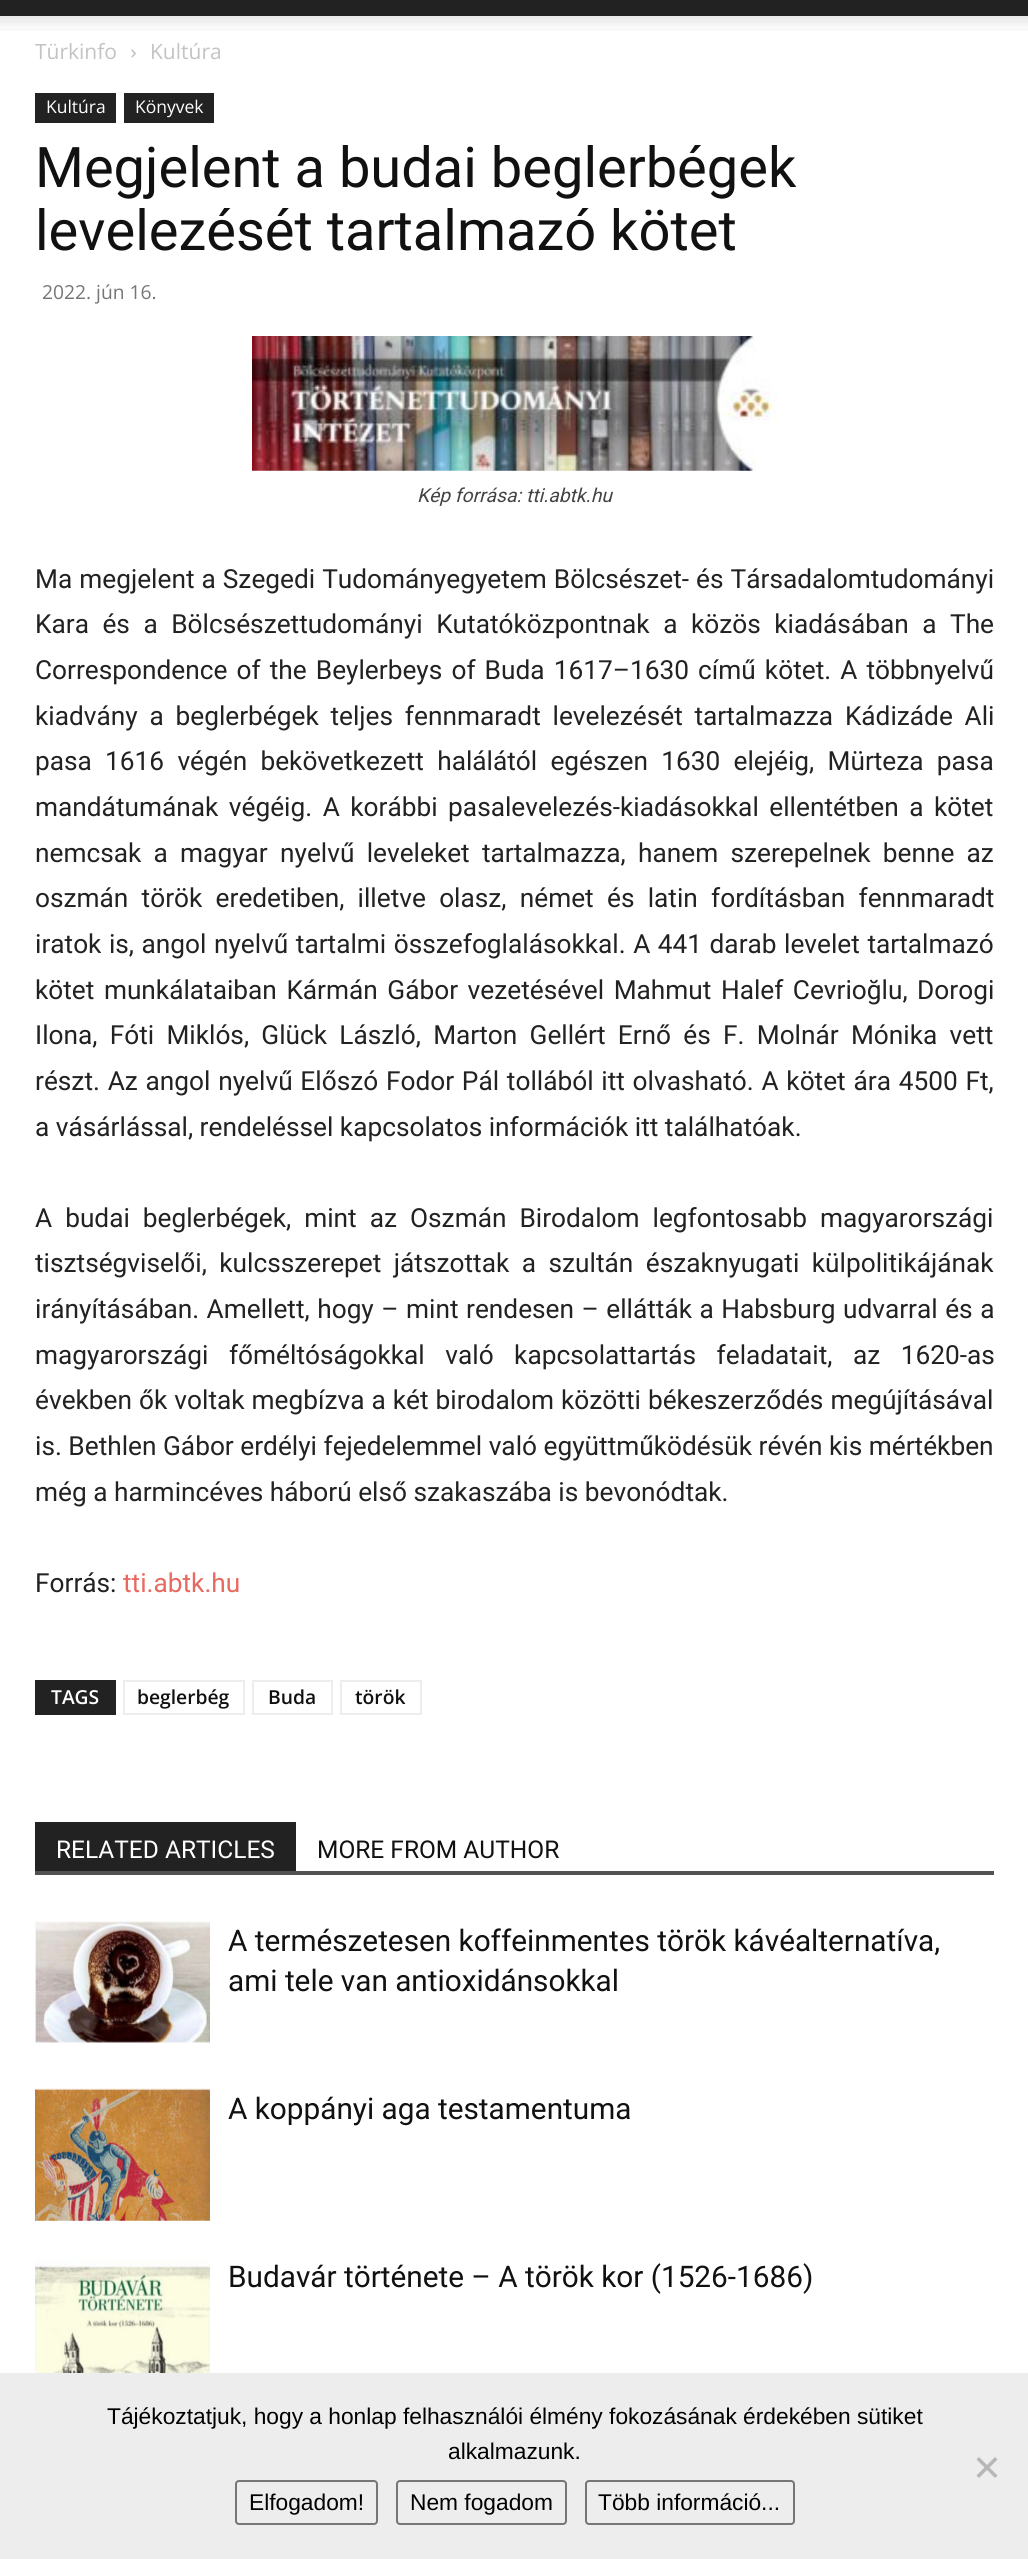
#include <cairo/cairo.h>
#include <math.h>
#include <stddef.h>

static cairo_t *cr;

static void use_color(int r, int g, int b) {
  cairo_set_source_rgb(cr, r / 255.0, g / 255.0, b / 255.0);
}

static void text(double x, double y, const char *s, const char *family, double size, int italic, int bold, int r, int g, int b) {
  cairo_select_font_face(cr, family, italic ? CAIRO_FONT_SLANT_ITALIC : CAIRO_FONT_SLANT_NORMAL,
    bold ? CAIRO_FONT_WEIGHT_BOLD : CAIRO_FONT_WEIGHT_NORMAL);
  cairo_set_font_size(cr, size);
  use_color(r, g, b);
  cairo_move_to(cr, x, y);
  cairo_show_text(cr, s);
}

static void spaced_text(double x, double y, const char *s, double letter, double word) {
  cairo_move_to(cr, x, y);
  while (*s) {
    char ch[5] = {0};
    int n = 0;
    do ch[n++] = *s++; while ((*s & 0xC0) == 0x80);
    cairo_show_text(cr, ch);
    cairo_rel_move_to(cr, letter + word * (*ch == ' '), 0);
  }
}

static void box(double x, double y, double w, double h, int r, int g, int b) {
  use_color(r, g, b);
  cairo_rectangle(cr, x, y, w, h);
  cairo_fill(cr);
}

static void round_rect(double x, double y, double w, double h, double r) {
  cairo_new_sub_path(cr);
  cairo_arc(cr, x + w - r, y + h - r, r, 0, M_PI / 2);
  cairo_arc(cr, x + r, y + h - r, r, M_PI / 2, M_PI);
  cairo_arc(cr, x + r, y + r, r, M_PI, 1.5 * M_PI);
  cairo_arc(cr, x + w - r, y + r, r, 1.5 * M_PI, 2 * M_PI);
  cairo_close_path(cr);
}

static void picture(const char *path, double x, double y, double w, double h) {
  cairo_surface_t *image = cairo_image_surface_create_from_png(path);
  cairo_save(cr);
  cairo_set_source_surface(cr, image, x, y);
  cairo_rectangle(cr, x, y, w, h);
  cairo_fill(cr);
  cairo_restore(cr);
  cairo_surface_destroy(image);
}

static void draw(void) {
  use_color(255, 255, 255);
  cairo_paint(cr);
  box(0, 0, 1028, 16, 34, 34, 34);
  picture("img_01.png", 0, 16, 1028, 15);
  picture("img_02.png", 131, 49, 5, 9);
  box(35, 93, 81, 30, 34, 34, 34);
  box(124, 93, 90, 30, 34, 34, 34);
  picture("img_03.png", 252, 336, 525, 135);
  box(35, 1680, 81, 35, 34, 34, 34);
  cairo_rectangle(cr, 124, 1681, 120, 33);
  use_color(237, 237, 237);
  cairo_stroke(cr);
  cairo_rectangle(cr, 253, 1681, 79, 33);
  cairo_stroke(cr);
  cairo_rectangle(cr, 341, 1681, 80, 33);
  cairo_stroke(cr);
  box(35, 1871, 959, 4, 81, 81, 81);
  box(35, 1822, 261, 49, 34, 34, 34);
  picture("img_04.png", 35, 1921, 175, 122);
  picture("img_05.png", 35, 2088, 175, 133);
  picture("img_06.png", 35, 2258, 175, 115);
  box(0, 2373, 1028, 186, 237, 237, 237);
  use_color(183, 183, 183);
  cairo_new_path(cr);
  cairo_move_to(cr, 995, 2457);
  cairo_line_to(cr, 997.5, 2459.5);
  cairo_line_to(cr, 979, 2478);
  cairo_line_to(cr, 976.5, 2475.5);
  cairo_close_path(cr);
  cairo_fill(cr);
  cairo_new_path(cr);
  cairo_move_to(cr, 976.5, 2459.5);
  cairo_line_to(cr, 979, 2457);
  cairo_line_to(cr, 997.5, 2475.5);
  cairo_line_to(cr, 995, 2478);
  cairo_close_path(cr);
  cairo_fill(cr);
  round_rect(236, 2481, 141, 43, 3);
  use_color(118, 118, 118);
  cairo_stroke(cr);
  round_rect(397, 2481, 169, 43, 3);
  cairo_stroke(cr);
  round_rect(586, 2481, 208, 43, 3);
  cairo_stroke(cr);
  text(35, 59, "Türkinfo", "Open Sans", 21, 0, 0, 195, 195, 195);
  text(150, 59, "Kultúra", "Open Sans", 21, 0, 0, 195, 195, 195);
  text(46, 113, "Kultúra", "Open Sans", 17.5, 0, 0, 255, 255, 255);
  text(135, 113, "Könyvek", "Open Sans", 17.5, 0, 0, 255, 255, 255);
  text(35, 187, "Megjelent a budai beglerbégek", "Roboto", 56, 0, 0, 17, 17, 17);
  text(35, 250, "levelezését tartalmazó kötet", "Roboto", 56, 0, 0, 17, 17, 17);
  text(42, 299, "2022. jún 16.", "Open Sans", 19.25, 0, 0, 118, 118, 118);
  text(417, 502, "Kép forrása: tti.abtk.hu", "Roboto", 19.25, 1, 0, 68, 68, 68);
  cairo_select_font_face(cr, "Roboto", CAIRO_FONT_SLANT_NORMAL, CAIRO_FONT_WEIGHT_NORMAL);
  cairo_set_font_size(cr, 26.25);
  use_color(34, 34, 34);
  spaced_text(35, 588, "Ma megjelent a Szegedi Tudományegyetem Bölcsészet- és Társadalomtudományi", 0, 0.5);
  spaced_text(35, 633, "Kara és a Bölcsészettudományi Kutatóközpontnak a közös kiadásában a The", 0, 7);
  spaced_text(35, 679, "Correspondence of the Beylerbeys of Buda 1617–1630 című kötet. A többnyelvű", 0, 2.6);
  spaced_text(35, 725, "kiadvány a beglerbégek teljes fennmaradt levelezését tartalmazza Kádizáde Ali", 0, 5.25);
  spaced_text(35, 770, "pasa 1616 végén bekövetkezett halálától egészen 1630 elejéig, Mürteza pasa", 0, 6.75);
  spaced_text(35, 816, "mandátumának végéig. A korábbi pasalevelezés-kiadásokkal ellentétben a kötet", 0, 4);
  spaced_text(35, 862, "nemcsak a magyar nyelvű leveleket tartalmazza, hanem szerepelnek benne az", 0, 5.75);
  spaced_text(35, 907, "oszmán török eredetiben, illetve olasz, német és latin fordításban fennmaradt", 0, 6.75);
  spaced_text(35, 953, "iratok is, angol nyelvű tartalmi összefoglalásokkal. A 441 darab levelet tartalmazó", 0, 1);
  spaced_text(35, 999, "kötet munkálataiban Kármán Gábor vezetésével Mahmut Halef Cevrioğlu, Dorogi", 0, 3);
  spaced_text(35, 1044, "Ilona, Fóti Miklós, Glück László, Marton Gellért Ernő és F. Molnár Mónika vett", 0, 5.75);
  spaced_text(35, 1090, "részt. Az angol nyelvű Előszó Fodor Pál tollából itt olvasható. A kötet ára 4500 Ft,", 0, 1.25);
  text(35, 1136, "a vásárlással, rendeléssel kapcsolatos információk itt találhatóak.", "Roboto", 26.25, 0, 0, 34, 34, 34);
  spaced_text(35, 1227, "A budai beglerbégek, mint az Oszmán Birodalom legfontosabb magyarországi", 0, 6.5);
  spaced_text(35, 1272, "tisztségviselői, kulcsszerepet játszottak a szultán északnyugati külpolitikájának", 0, 6);
  spaced_text(35, 1318, "irányításában. Amellett, hogy – mint rendesen – ellátták a Habsburg udvarral és a", 0, 1);
  spaced_text(35, 1364, "magyarországi főméltóságokkal való kapcsolattartás feladatait, az 1620-as", 0, 14);
  spaced_text(35, 1409, "években ők voltak megbízva a két birodalom közötti békeszerződés megújításával", 0, 0.5);
  text(35, 1455, "is. Bethlen Gábor erdélyi fejedelemmel való együttműködésük révén kis mértékben", "Roboto", 26.25, 0, 0, 34, 34, 34);
  text(35, 1501, "még a harmincéves háború első szakaszába is bevonódtak.", "Roboto", 26.25, 0, 0, 34, 34, 34);
  text(35, 1592, "Forrás:", "Roboto", 26.25, 0, 0, 34, 34, 34);
  text(123, 1592, "tti.abtk.hu", "Roboto", 26.25, 0, 0, 231, 106, 97);
  text(51, 1704, "TAGS", "Open Sans SemiBold", 19.25, 0, 0, 255, 255, 255);
  text(137, 1704, "beglerbég", "Open Sans SemiBold", 19.25, 0, 0, 17, 17, 17);
  text(268, 1704, "Buda", "Open Sans SemiBold", 19.25, 0, 0, 17, 17, 17);
  text(355, 1704, "török", "Open Sans SemiBold", 19.25, 0, 0, 17, 17, 17);
  text(56, 1858, "RELATED ARTICLES", "Roboto", 24.5, 0, 0, 255, 255, 255);
  text(317, 1858, "MORE FROM AUTHOR", "Roboto", 24.5, 0, 0, 17, 17, 17);
  text(228, 1951, "A természetesen koffeinmentes török kávéalternatíva,", "Roboto", 29.75, 0, 0, 17, 17, 17);
  text(228, 1991, "ami tele van antioxidánsokkal", "Roboto", 29.75, 0, 0, 17, 17, 17);
  text(228, 2119, "A koppányi aga testamentuma", "Roboto", 29.75, 0, 0, 17, 17, 17);
  text(228, 2287, "Budavár története – A török kor (1526-1686)", "Roboto", 29.75, 0, 0, 17, 17, 17);
  text(107, 2424, "Tájékoztatjuk, hogy a honlap felhasználói élmény fokozásának érdekében sütiket", "Liberation Sans", 22.75, 0, 0, 0, 0, 0);
  text(448, 2459, "alkalmazunk.", "Liberation Sans", 22.75, 0, 0, 0, 0, 0);
  text(249, 2510, "Elfogadom!", "Liberation Sans", 22.75, 0, 0, 0, 0, 0);
  text(410, 2510, "Nem fogadom", "Liberation Sans", 22.75, 0, 0, 0, 0, 0);
  text(598, 2510, "Több információ...", "Liberation Sans", 22.75, 0, 0, 0, 0, 0);
}

int main(void) {
  cairo_surface_t *surface = cairo_image_surface_create(CAIRO_FORMAT_RGB24, 1028, 2559);
  cr = cairo_create(surface);
  cairo_font_options_t *options = cairo_font_options_create();
  cairo_font_options_set_hint_metrics(options, CAIRO_HINT_METRICS_OFF);
  cairo_font_options_set_hint_style(options, CAIRO_HINT_STYLE_NONE);
  cairo_set_font_options(cr, options);
  cairo_set_miter_limit(cr, 4);
  draw();
  cairo_surface_write_to_png(surface, "out.png");
  cairo_font_options_destroy(options);
  cairo_destroy(cr);
  cairo_surface_destroy(surface);
  return 0;
}
